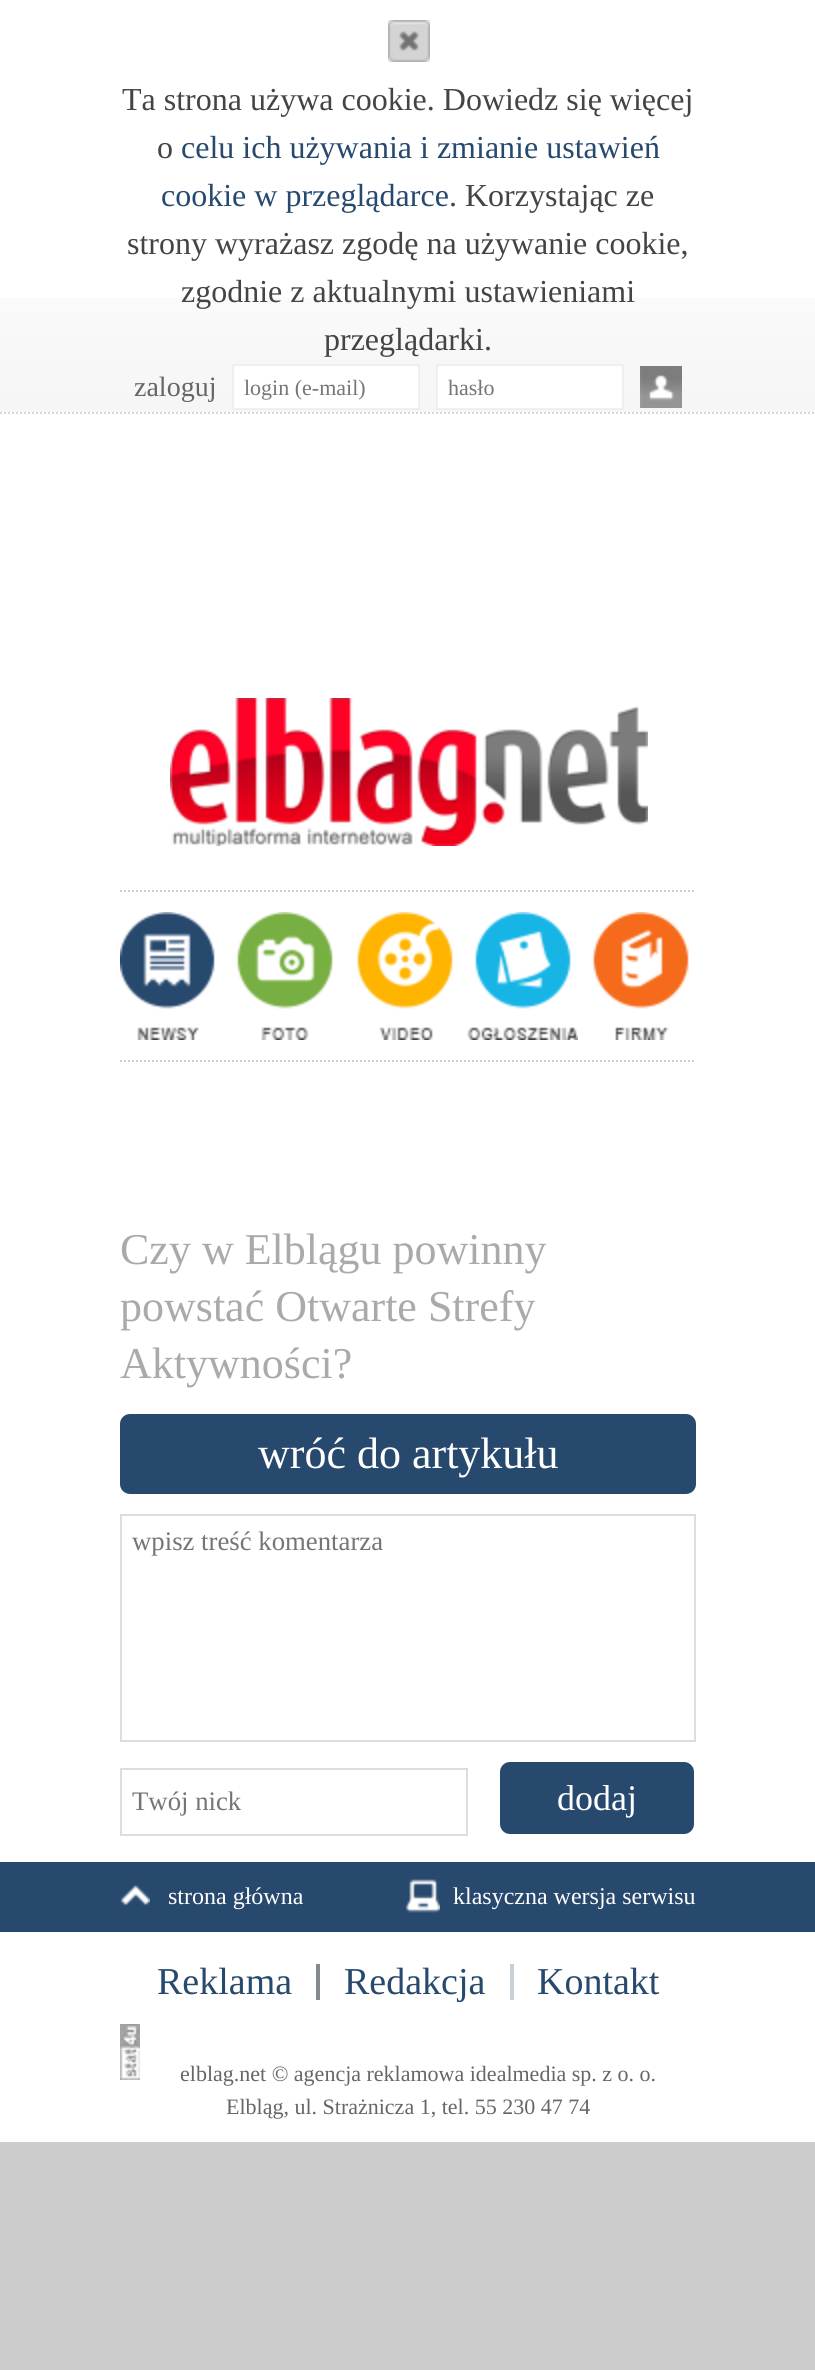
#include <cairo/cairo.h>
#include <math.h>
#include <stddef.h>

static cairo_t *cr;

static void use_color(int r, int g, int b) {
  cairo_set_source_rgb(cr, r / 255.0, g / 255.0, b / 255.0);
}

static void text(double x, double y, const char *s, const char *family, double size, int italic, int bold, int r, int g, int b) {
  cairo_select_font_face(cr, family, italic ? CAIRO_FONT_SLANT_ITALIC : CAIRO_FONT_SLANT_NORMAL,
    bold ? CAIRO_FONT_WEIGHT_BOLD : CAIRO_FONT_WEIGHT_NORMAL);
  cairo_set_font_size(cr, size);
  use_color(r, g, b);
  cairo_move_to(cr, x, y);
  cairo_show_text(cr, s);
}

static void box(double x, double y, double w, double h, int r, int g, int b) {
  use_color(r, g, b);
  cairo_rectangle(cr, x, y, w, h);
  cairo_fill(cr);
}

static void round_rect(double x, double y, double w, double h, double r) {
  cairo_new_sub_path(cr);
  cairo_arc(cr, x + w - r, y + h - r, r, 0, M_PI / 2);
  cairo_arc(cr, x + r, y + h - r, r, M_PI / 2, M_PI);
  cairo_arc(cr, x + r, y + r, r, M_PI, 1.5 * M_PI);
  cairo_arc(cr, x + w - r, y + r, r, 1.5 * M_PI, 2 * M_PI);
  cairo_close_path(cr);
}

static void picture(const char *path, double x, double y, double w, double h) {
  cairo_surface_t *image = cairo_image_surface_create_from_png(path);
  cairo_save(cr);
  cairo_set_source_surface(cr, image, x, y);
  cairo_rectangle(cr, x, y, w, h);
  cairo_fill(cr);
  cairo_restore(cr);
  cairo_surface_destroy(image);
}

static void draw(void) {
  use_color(204, 204, 204);
  cairo_paint(cr);
  box(0, 0, 815, 2142, 255, 255, 255);
  picture("img_01.png", 0, 298, 815, 114);
  cairo_new_path(cr);
  cairo_move_to(cr, 0, 413);
  cairo_line_to(cr, 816, 413);
  use_color(215, 215, 215);
  cairo_set_dash(cr, (double[]){2, 2}, 2, 0);
  cairo_stroke(cr);
  picture("img_02.png", 388, 20, 42, 42);
  use_color(255, 255, 255);
  cairo_rectangle(cr, 233, 365, 186, 44);
  cairo_fill_preserve(cr);
  use_color(239, 239, 239);
  cairo_set_dash(cr, NULL, 0, 0);
  cairo_stroke(cr);
  use_color(255, 255, 255);
  cairo_rectangle(cr, 437, 365, 186, 44);
  cairo_fill_preserve(cr);
  use_color(239, 239, 239);
  cairo_stroke(cr);
  picture("img_03.png", 640, 366, 42, 42);
  picture("img_04.png", 170, 698, 478, 148);
  cairo_new_path(cr);
  cairo_move_to(cr, 120, 891);
  cairo_line_to(cr, 696, 891);
  use_color(204, 204, 204);
  cairo_set_dash(cr, (double[]){2, 2}, 2, 0);
  cairo_stroke(cr);
  cairo_new_path(cr);
  cairo_move_to(cr, 120, 1061);
  cairo_line_to(cr, 696, 1061);
  cairo_stroke(cr);
  picture("img_05.png", 120, 912, 95, 128);
  picture("img_06.png", 237, 912, 96, 128);
  picture("img_07.png", 357, 912, 96, 128);
  picture("img_08.png", 467, 912, 111, 128);
  picture("img_09.png", 593, 912, 96, 128);
  use_color(40, 73, 110);
  round_rect(120, 1414, 576, 80, 10);
  cairo_fill(cr);
  cairo_rectangle(cr, 121, 1515, 574, 226);
  use_color(221, 221, 221);
  cairo_set_dash(cr, NULL, 0, 0);
  cairo_stroke(cr);
  cairo_rectangle(cr, 121, 1769, 346, 66);
  cairo_stroke(cr);
  use_color(40, 73, 110);
  round_rect(500, 1762, 194, 72, 10);
  cairo_fill(cr);
  box(0, 1862, 815, 70, 40, 73, 110);
  picture("img_10.png", 120, 1885, 30, 21);
  picture("img_11.png", 406, 1879, 34, 34);
  box(510, 1964, 4, 36, 199, 207, 215);
  box(316, 1964, 4, 36, 133, 138, 143);
  picture("img_12.png", 120, 2024, 20, 56);
  text(122, 110, "Ta strona używa cookie. Dowiedz się więcej", "Liberation Serif", 32, 0, 0, 68, 68, 68);
  text(157, 158, "o", "Liberation Serif", 32, 0, 0, 68, 68, 68);
  text(181, 158, "celu ich używania i zmianie ustawień", "Liberation Serif", 32, 0, 0, 40, 73, 110);
  text(161, 206, "cookie w przeglądarce", "Liberation Serif", 32, 0, 0, 40, 73, 110);
  text(449, 206, ". Korzystając ze", "Liberation Serif", 32, 0, 0, 68, 68, 68);
  text(127, 254, "strony wyrażasz zgodę na używanie cookie,", "Liberation Serif", 32, 0, 0, 68, 68, 68);
  text(181, 302, "zgodnie z aktualnymi ustawieniami", "Liberation Serif", 32, 0, 0, 68, 68, 68);
  text(324, 350, "przeglądarki.", "Liberation Serif", 32, 0, 0, 68, 68, 68);
  text(134, 396, "zaloguj", "Liberation Serif", 28, 0, 0, 102, 102, 102);
  text(244, 395, "login (e-mail)", "Liberation Serif", 22, 0, 0, 117, 117, 117);
  text(448, 395, "hasło", "Liberation Serif", 22, 0, 0, 117, 117, 117);
  text(120, 1264, "Czy w Elblągu powinny", "Liberation Serif", 44, 0, 0, 170, 170, 170);
  text(120, 1321, "powstać Otwarte Strefy", "Liberation Serif", 44, 0, 0, 170, 170, 170);
  text(120, 1378, "Aktywności?", "Liberation Serif", 44, 0, 0, 170, 170, 170);
  text(258, 1468, "wróć do artykułu", "Liberation Serif", 44, 0, 0, 255, 255, 255);
  text(132, 1550, "wpisz treść komentarza", "Liberation Serif", 26.75, 0, 0, 117, 117, 117);
  text(132, 1810, "Twój nick", "Liberation Serif", 26.75, 0, 0, 117, 117, 117);
  text(557, 1810, "dodaj", "Liberation Serif", 36, 0, 0, 255, 255, 255);
  text(168, 1904, "strona główna", "Liberation Serif", 24, 0, 0, 255, 255, 255);
  text(453, 1904, "klasyczna wersja serwisu", "Liberation Serif", 24, 0, 0, 255, 255, 255);
  text(157, 1994, "Reklama", "Liberation Serif", 38, 0, 0, 40, 73, 110);
  text(344, 1994, "Redakcja", "Liberation Serif", 38, 0, 0, 40, 73, 110);
  text(537, 1994, "Kontakt", "Liberation Serif", 38, 0, 0, 40, 73, 110);
  text(180, 2081, "elblag.net © agencja reklamowa idealmedia sp. z o. o.", "Liberation Serif", 22, 0, 0, 102, 102, 102);
  text(226, 2114, "Elbląg, ul. Strażnicza 1, tel. 55 230 47 74", "Liberation Serif", 22, 0, 0, 102, 102, 102);
}

int main(void) {
  cairo_surface_t *surface = cairo_image_surface_create(CAIRO_FORMAT_RGB24, 815, 2370);
  cr = cairo_create(surface);
  cairo_font_options_t *options = cairo_font_options_create();
  cairo_font_options_set_hint_metrics(options, CAIRO_HINT_METRICS_OFF);
  cairo_font_options_set_hint_style(options, CAIRO_HINT_STYLE_NONE);
  cairo_set_font_options(cr, options);
  cairo_set_miter_limit(cr, 4);
  draw();
  cairo_surface_write_to_png(surface, "out.png");
  cairo_font_options_destroy(options);
  cairo_destroy(cr);
  cairo_surface_destroy(surface);
  return 0;
}
